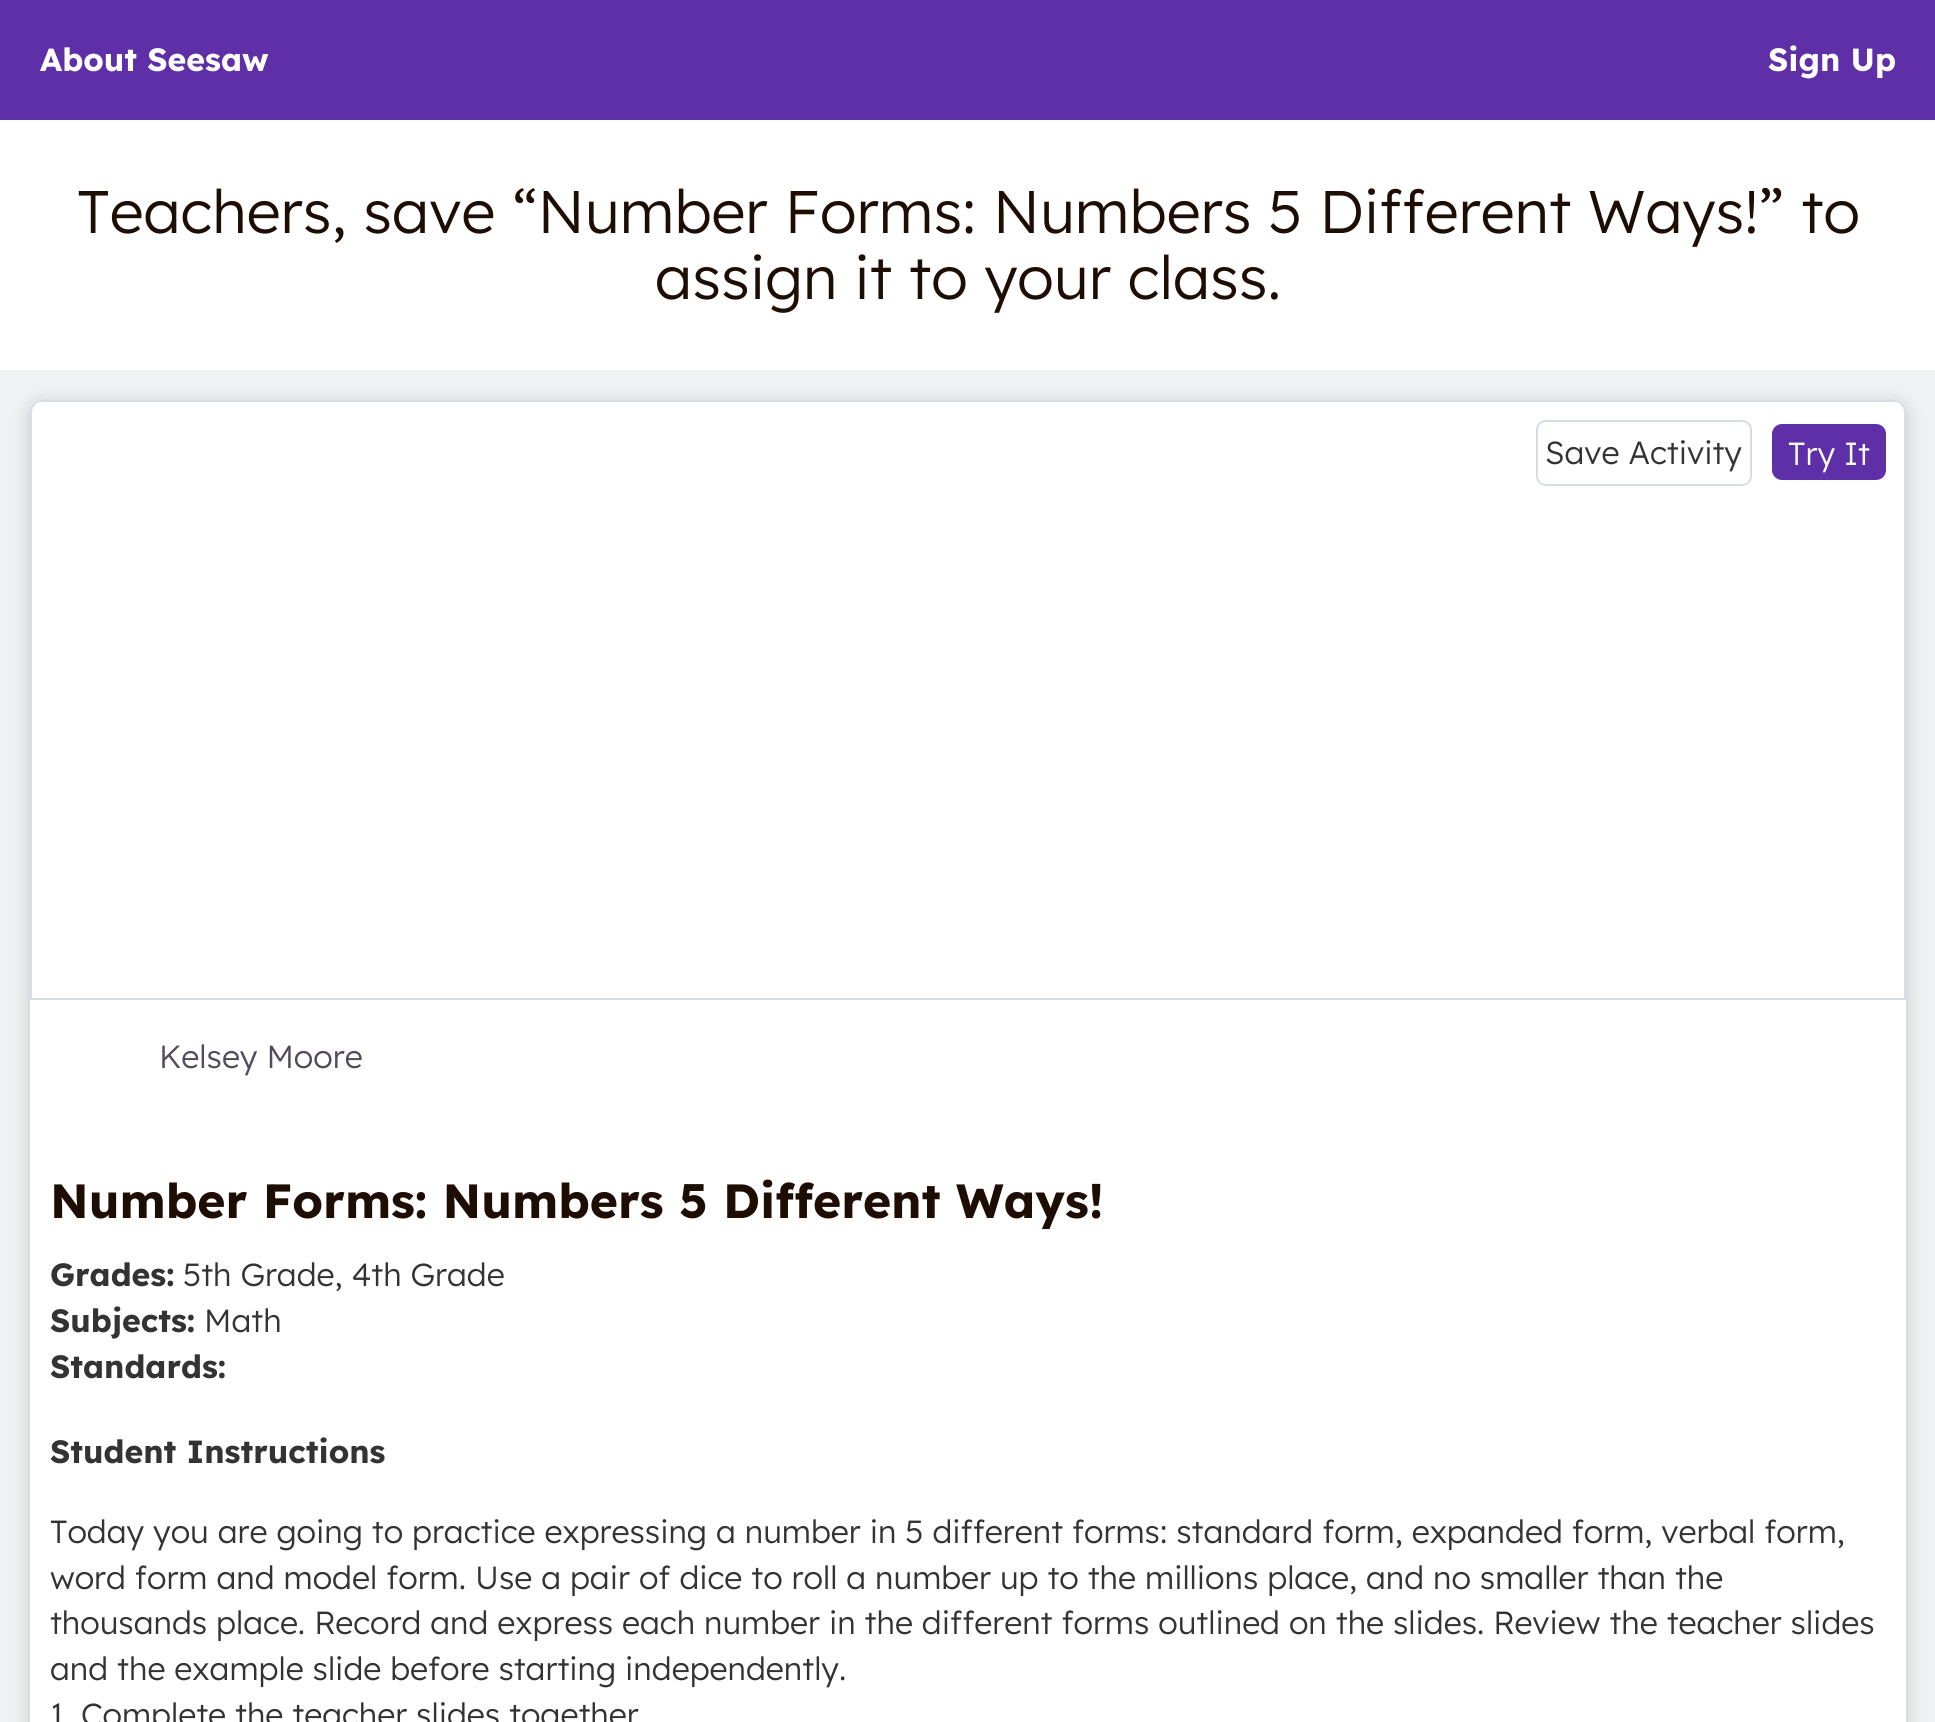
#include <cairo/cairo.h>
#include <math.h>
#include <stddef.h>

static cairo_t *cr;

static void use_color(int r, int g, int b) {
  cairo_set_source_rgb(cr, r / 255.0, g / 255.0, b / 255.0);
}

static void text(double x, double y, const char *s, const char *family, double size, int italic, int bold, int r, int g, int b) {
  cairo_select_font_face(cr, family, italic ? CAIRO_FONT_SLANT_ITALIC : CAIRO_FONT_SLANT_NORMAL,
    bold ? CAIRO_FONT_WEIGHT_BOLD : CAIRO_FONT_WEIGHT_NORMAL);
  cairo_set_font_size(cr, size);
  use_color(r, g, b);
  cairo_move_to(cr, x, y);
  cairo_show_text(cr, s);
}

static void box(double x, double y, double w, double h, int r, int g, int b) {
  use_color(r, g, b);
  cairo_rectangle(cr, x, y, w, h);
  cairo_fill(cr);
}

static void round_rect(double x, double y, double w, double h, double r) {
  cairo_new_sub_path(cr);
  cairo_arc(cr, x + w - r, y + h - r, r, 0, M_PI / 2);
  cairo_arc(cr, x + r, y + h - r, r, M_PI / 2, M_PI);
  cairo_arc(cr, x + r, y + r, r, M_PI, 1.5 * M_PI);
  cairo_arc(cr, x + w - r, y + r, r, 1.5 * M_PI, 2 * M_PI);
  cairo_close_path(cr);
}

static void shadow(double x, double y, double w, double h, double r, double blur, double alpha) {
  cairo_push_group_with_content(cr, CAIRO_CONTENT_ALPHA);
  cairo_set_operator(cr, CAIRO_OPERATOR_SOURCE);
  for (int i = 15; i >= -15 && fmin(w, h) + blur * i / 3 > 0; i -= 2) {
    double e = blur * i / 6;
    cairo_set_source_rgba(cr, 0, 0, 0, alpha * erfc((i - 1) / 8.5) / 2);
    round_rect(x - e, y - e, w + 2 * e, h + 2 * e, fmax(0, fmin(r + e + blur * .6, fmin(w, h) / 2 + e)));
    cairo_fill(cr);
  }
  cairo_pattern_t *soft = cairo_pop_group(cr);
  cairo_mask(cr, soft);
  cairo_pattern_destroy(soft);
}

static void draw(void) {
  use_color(240, 242, 243);
  cairo_paint(cr);
  box(0, 0, 1935, 120, 95, 47, 168);
  box(0, 120, 1935, 250, 255, 255, 255);
  use_color(0, 0, 0);
  shadow(30, 404, 1876, 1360, 12, 10, 0.2);
  use_color(255, 255, 255);
  round_rect(30, 400, 1876, 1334, 12);
  cairo_fill(cr);
  cairo_new_path(cr);
  cairo_move_to(cr, 42, 401);
  cairo_line_to(cr, 1894, 401);
  cairo_curve_to(cr, 1900, 401, 1905, 406, 1905, 412);
  cairo_line_to(cr, 1905, 999);
  cairo_line_to(cr, 31, 999);
  cairo_line_to(cr, 31, 412);
  cairo_curve_to(cr, 31, 406, 36, 401, 42, 401);
  cairo_close_path(cr);
  use_color(216, 221, 227);
  cairo_stroke(cr);
  round_rect(1537, 421, 214, 64, 9);
  cairo_stroke(cr);
  use_color(95, 47, 168);
  round_rect(1772, 424, 114, 56, 10);
  cairo_fill(cr);
  text(40, 71, "About Seesaw", "Lexend", 32, 0, 1, 255, 255, 255);
  text(1768, 71, "Sign Up", "Lexend", 32, 0, 1, 255, 255, 255);
  text(77, 233, "Teachers, save “Number Forms: Numbers 5 Different Ways!” to", "Lexend Light", 60, 0, 0, 30, 13, 3);
  text(655, 299, "assign it to your class.", "Lexend Light", 60, 0, 0, 30, 13, 3);
  text(1545, 464, "Save Activity", "Lexend Light", 32, 0, 0, 51, 51, 51);
  text(1788, 465, "Try It", "Lexend Light", 32, 0, 0, 255, 255, 255);
  text(159, 1068, "Kelsey Moore", "Lexend Light", 32, 0, 0, 82, 75, 89);
  text(50, 1218, "Number Forms: Numbers 5 Different Ways!", "Lexend", 48, 0, 1, 30, 13, 3);
  text(50, 1286, "Grades:", "Lexend", 32, 0, 1, 51, 51, 51);
  text(183, 1286, "5th Grade, 4th Grade", "Lexend Light", 32, 0, 0, 51, 51, 51);
  text(50, 1332, "Subjects:", "Lexend", 32, 0, 1, 51, 51, 51);
  text(204, 1332, "Math", "Lexend Light", 32, 0, 0, 51, 51, 51);
  text(50, 1378, "Standards:", "Lexend", 32, 0, 1, 51, 51, 51);
  text(50, 1463, "Student Instructions", "Lexend", 32, 0, 1, 51, 51, 51);
  text(50, 1543, "Today you are going to practice expressing a number in 5 different forms: standard form, expanded form, verbal form,", "Lexend Light", 32, 0, 0, 51, 51, 51);
  text(50, 1589, "word form and model form. Use a pair of dice to roll a number up to the millions place, and no smaller than the", "Lexend Light", 32, 0, 0, 51, 51, 51);
  text(50, 1634, "thousands place. Record and express each number in the different forms outlined on the slides. Review the teacher slides", "Lexend Light", 32, 0, 0, 51, 51, 51);
  text(50, 1680, "and the example slide before starting independently.", "Lexend Light", 32, 0, 0, 51, 51, 51);
  text(50, 1726, "1. Complete the teacher slides together", "Lexend Light", 32, 0, 0, 51, 51, 51);
}

int main(void) {
  cairo_surface_t *surface = cairo_image_surface_create(CAIRO_FORMAT_RGB24, 1935, 1722);
  cr = cairo_create(surface);
  cairo_font_options_t *options = cairo_font_options_create();
  cairo_font_options_set_hint_metrics(options, CAIRO_HINT_METRICS_OFF);
  cairo_font_options_set_hint_style(options, CAIRO_HINT_STYLE_NONE);
  cairo_set_font_options(cr, options);
  cairo_set_miter_limit(cr, 4);
  draw();
  cairo_surface_write_to_png(surface, "out.png");
  cairo_font_options_destroy(options);
  cairo_destroy(cr);
  cairo_surface_destroy(surface);
  return 0;
}
